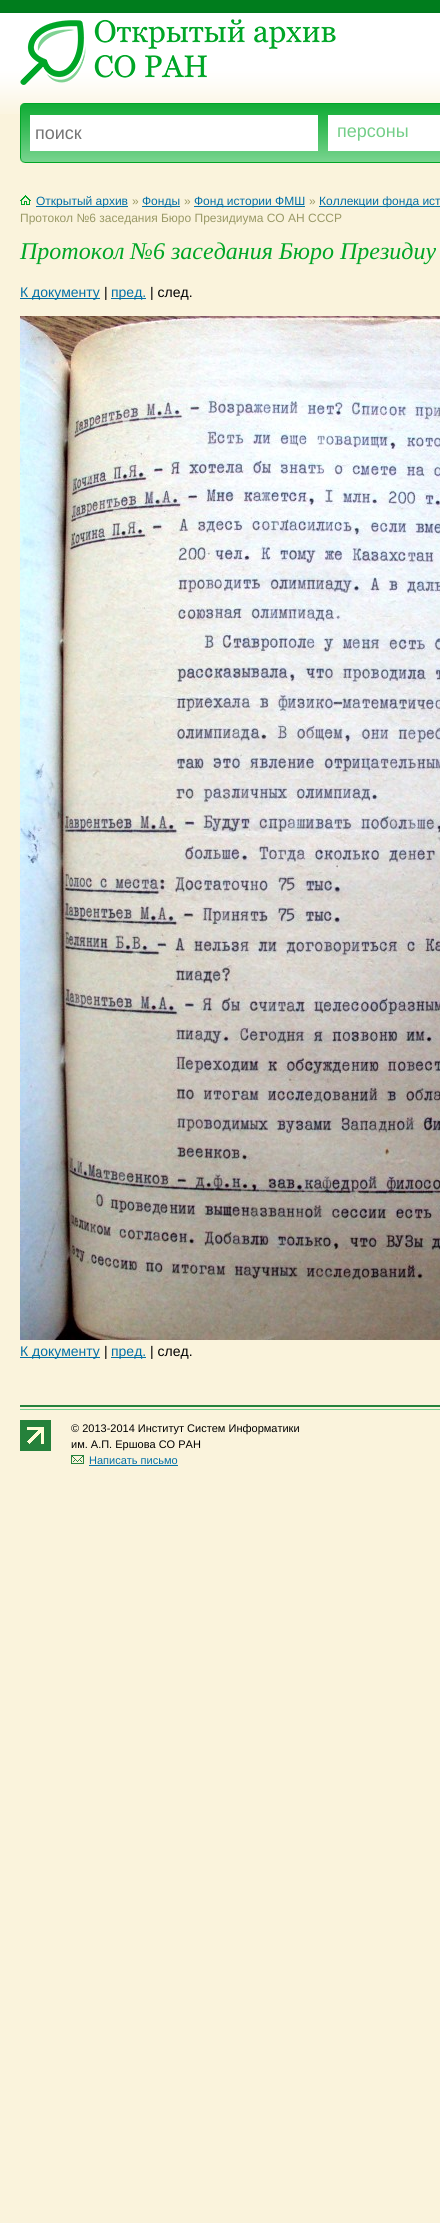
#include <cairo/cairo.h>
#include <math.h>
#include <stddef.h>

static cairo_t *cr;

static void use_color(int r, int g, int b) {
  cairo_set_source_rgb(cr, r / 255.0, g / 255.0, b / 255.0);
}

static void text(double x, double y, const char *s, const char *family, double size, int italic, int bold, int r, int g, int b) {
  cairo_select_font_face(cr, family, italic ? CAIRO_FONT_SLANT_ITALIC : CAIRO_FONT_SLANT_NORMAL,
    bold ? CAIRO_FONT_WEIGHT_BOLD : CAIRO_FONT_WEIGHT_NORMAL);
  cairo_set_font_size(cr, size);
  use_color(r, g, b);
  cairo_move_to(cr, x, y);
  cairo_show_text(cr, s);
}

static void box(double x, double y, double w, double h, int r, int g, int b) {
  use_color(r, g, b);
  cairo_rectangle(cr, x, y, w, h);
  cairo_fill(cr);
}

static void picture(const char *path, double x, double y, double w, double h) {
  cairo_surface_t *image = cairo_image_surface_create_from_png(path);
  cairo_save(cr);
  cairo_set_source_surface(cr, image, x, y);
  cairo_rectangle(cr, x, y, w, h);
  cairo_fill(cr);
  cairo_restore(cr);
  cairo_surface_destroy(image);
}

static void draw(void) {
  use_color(250, 243, 220);
  cairo_paint(cr);
  picture("img_01.png", 0, 0, 440, 114);
  picture("img_02.png", 20, 19, 316, 66);
  picture("img_03.png", 25, 103, 415, 60);
  picture("img_04.png", 20, 103, 5, 60);
  box(30, 115, 288, 36, 255, 255, 255);
  box(328, 115, 112, 36, 255, 255, 255);
  picture("img_05.png", 20, 195, 11, 10);
  box(36, 206, 92, 1, 3, 112, 167);
  box(142, 206, 38, 1, 3, 112, 167);
  box(194, 206, 111, 1, 3, 112, 167);
  box(319, 206, 121, 1, 3, 112, 167);
  box(20, 298, 80, 1, 3, 112, 167);
  box(111, 298, 35, 1, 3, 112, 167);
  picture("img_06.png", 20, 316, 420, 1024);
  box(20, 1357, 80, 1, 3, 112, 167);
  box(111, 1357, 35, 1, 3, 112, 167);
  picture("img_07.png", 20, 1405, 420, 5);
  picture("img_08.png", 20, 1420, 31, 31);
  picture("img_09.png", 71, 1455, 13, 9);
  box(89, 1465, 89, 1, 3, 112, 167);
  text(35, 139, "поиск", "Liberation Sans", 18, 0, 0, 117, 117, 117);
  text(337, 137, "персоны", "Liberation Sans", 18, 0, 0, 115, 206, 136);
  text(36, 205, "Открытый архив", "Liberation Sans", 12, 0, 0, 3, 112, 167);
  text(132, 205, "»", "Liberation Sans", 12, 0, 0, 153, 153, 102);
  text(142, 205, "Фонды", "Liberation Sans", 12, 0, 0, 3, 112, 167);
  text(184, 205, "»", "Liberation Sans", 12, 0, 0, 153, 153, 102);
  text(194, 205, "Фонд истории ФМШ", "Liberation Sans", 12, 0, 0, 3, 112, 167);
  text(309, 205, "»", "Liberation Sans", 12, 0, 0, 153, 153, 102);
  text(319, 205, "Коллекции фонда ист", "Liberation Sans", 12, 0, 0, 3, 112, 167);
  text(20, 222, "Протокол №6 заседания Бюро Президиума СО АН СССР", "Liberation Sans", 12, 0, 0, 153, 153, 102);
  text(20, 259, "Протокол №6 заседания Бюро Президиу", "Liberation Serif", 24, 1, 0, 0, 166, 39);
  text(20, 297, "К документу", "Liberation Sans", 14, 0, 0, 3, 112, 167);
  text(104, 297, "|", "Liberation Sans", 14, 0, 0, 0, 0, 0);
  text(111, 297, "пред.", "Liberation Sans", 14, 0, 0, 3, 112, 167);
  text(150, 297, "| след.", "Liberation Sans", 14, 0, 0, 0, 0, 0);
  text(20, 1356, "К документу", "Liberation Sans", 14, 0, 0, 3, 112, 167);
  text(104, 1356, "|", "Liberation Sans", 14, 0, 0, 0, 0, 0);
  text(111, 1356, "пред.", "Liberation Sans", 14, 0, 0, 3, 112, 167);
  text(150, 1356, "| след.", "Liberation Sans", 14, 0, 0, 0, 0, 0);
  text(71, 1432, "© 2013-2014 Институт Систем Информатики", "Liberation Sans", 11, 0, 0, 0, 0, 0);
  text(71, 1448, "им. А.П. Ершова СО РАН", "Liberation Sans", 11, 0, 0, 0, 0, 0);
  text(89, 1464, "Написать письмо", "Liberation Sans", 11, 0, 0, 3, 112, 167);
}

int main(void) {
  cairo_surface_t *surface = cairo_image_surface_create(CAIRO_FORMAT_RGB24, 440, 2223);
  cr = cairo_create(surface);
  cairo_font_options_t *options = cairo_font_options_create();
  cairo_font_options_set_hint_metrics(options, CAIRO_HINT_METRICS_OFF);
  cairo_font_options_set_hint_style(options, CAIRO_HINT_STYLE_NONE);
  cairo_set_font_options(cr, options);
  cairo_set_miter_limit(cr, 4);
  draw();
  cairo_surface_write_to_png(surface, "out.png");
  cairo_font_options_destroy(options);
  cairo_destroy(cr);
  cairo_surface_destroy(surface);
  return 0;
}
